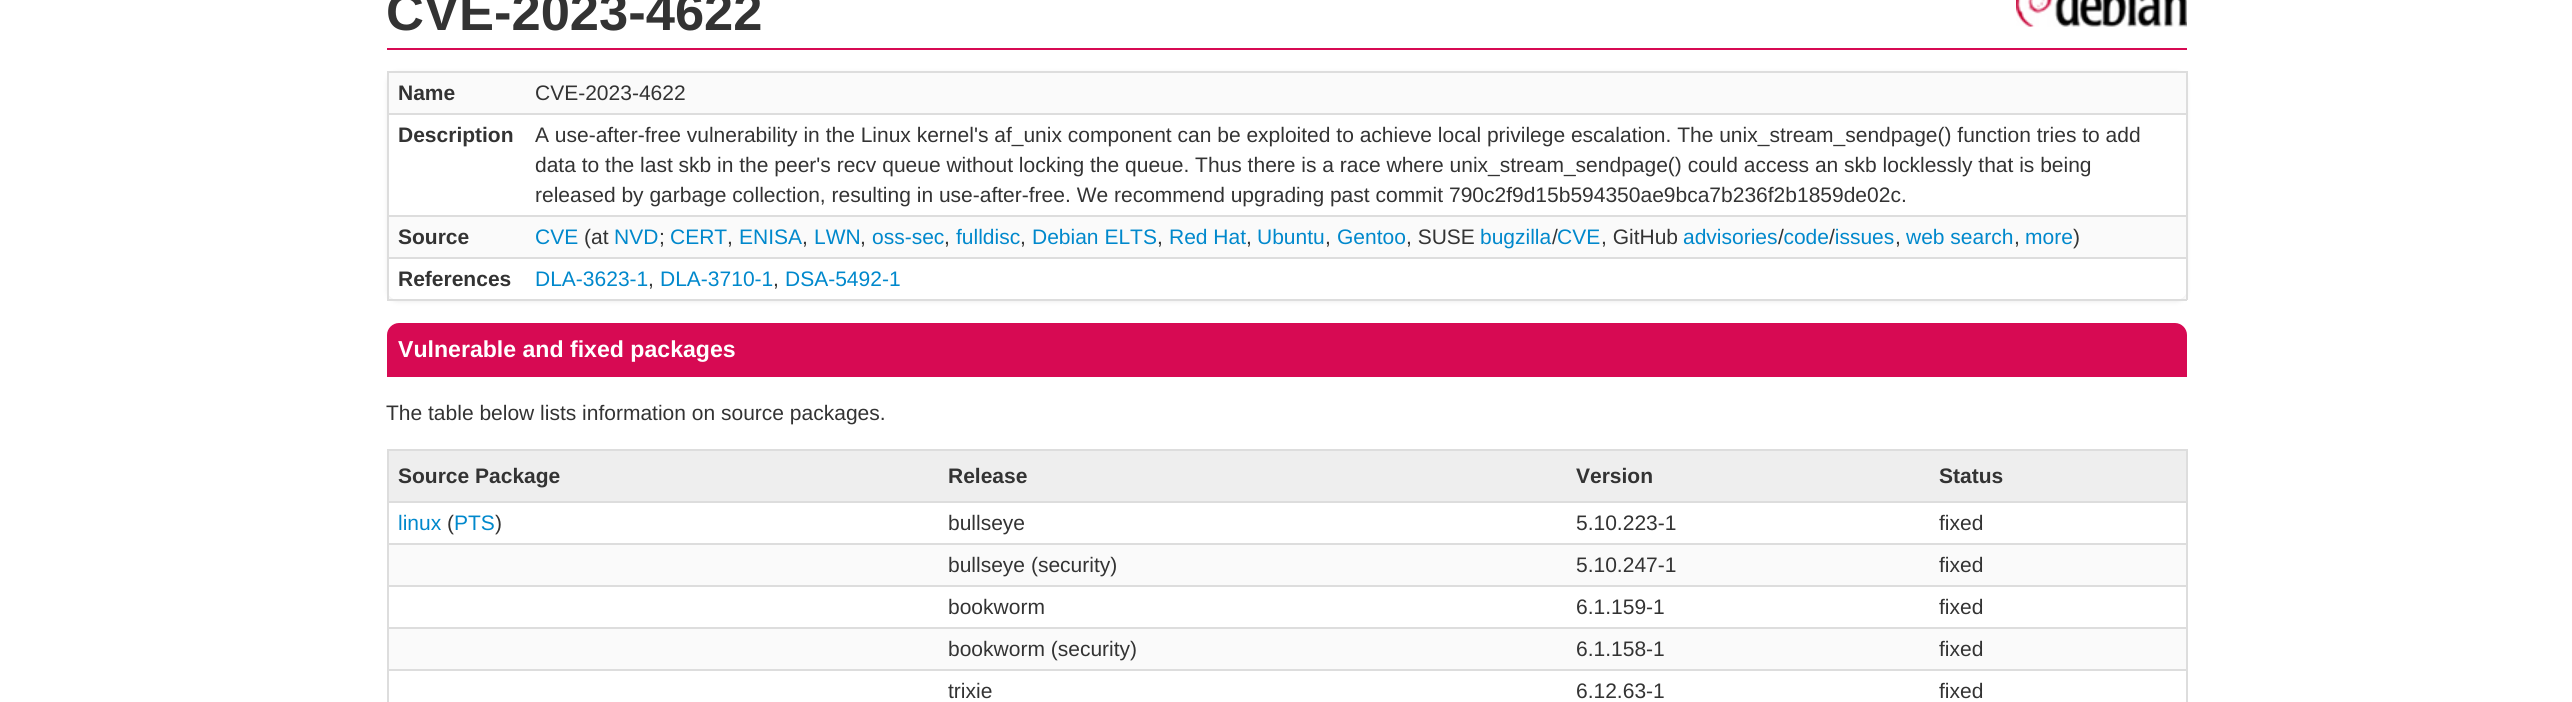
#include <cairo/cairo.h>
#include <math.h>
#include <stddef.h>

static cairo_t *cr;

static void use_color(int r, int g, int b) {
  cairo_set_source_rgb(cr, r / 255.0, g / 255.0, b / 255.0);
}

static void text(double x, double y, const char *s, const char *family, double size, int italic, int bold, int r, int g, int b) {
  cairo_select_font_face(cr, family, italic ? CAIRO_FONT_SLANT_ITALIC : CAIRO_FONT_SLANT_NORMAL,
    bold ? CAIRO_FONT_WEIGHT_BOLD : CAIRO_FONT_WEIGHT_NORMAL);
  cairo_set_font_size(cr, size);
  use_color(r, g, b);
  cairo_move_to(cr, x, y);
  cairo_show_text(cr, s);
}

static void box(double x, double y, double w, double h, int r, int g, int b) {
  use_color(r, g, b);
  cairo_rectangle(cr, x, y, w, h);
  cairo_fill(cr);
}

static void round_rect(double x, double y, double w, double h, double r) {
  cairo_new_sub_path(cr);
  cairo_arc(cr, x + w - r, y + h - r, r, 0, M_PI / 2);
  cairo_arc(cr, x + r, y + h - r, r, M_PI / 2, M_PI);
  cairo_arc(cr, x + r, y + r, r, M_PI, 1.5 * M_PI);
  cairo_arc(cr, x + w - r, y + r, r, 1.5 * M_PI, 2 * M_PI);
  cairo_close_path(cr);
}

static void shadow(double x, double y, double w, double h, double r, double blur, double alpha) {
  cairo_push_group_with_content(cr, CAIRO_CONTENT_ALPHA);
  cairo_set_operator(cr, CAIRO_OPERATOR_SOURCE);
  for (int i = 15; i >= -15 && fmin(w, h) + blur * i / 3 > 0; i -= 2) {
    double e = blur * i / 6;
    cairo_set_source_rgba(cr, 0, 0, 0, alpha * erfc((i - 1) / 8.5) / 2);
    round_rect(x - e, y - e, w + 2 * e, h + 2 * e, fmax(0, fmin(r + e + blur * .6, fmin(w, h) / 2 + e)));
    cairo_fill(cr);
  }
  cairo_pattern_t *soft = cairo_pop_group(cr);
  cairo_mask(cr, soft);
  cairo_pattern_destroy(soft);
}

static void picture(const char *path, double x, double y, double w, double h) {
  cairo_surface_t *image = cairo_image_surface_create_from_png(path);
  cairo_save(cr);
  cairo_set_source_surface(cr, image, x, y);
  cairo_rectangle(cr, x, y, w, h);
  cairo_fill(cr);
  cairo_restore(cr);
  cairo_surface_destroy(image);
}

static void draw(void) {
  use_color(255, 255, 255);
  cairo_paint(cr);
  picture("img_01.png", 2016, 0, 171, 27);
  box(387, 48, 1800, 2, 215, 10, 83);
  cairo_save(cr);
  cairo_set_fill_rule(cr, CAIRO_FILL_RULE_EVEN_ODD);
  cairo_new_path(cr);
  cairo_move_to(cr, 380, 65);
  cairo_line_to(cr, 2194, 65);
  cairo_line_to(cr, 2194, 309);
  cairo_line_to(cr, 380, 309);
  cairo_close_path(cr);
  cairo_move_to(cr, 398, 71);
  cairo_line_to(cr, 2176, 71);
  cairo_curve_to(cr, 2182, 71, 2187, 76, 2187, 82);
  cairo_line_to(cr, 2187, 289);
  cairo_curve_to(cr, 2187, 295, 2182, 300, 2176, 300);
  cairo_line_to(cr, 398, 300);
  cairo_curve_to(cr, 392, 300, 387, 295, 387, 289);
  cairo_line_to(cr, 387, 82);
  cairo_curve_to(cr, 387, 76, 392, 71, 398, 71);
  cairo_close_path(cr);
  cairo_clip(cr);
  use_color(238, 238, 238);
  shadow(387, 72, 1800, 230, 11, 2, 1);
  cairo_restore(cr);
  box(387, 71, 1800, 2, 221, 221, 221);
  box(2186, 71, 2, 229, 221, 221, 221);
  box(387, 299, 1800, 2, 221, 221, 221);
  box(387, 71, 2, 229, 221, 221, 221);
  box(389, 73, 1797, 40, 250, 250, 250);
  box(387, 113, 1800, 2, 221, 221, 221);
  box(387, 215, 1800, 2, 221, 221, 221);
  box(389, 217, 1797, 40, 250, 250, 250);
  box(387, 257, 1800, 2, 221, 221, 221);
  use_color(215, 10, 83);
  cairo_new_path(cr);
  cairo_move_to(cr, 399, 323);
  cairo_line_to(cr, 2175, 323);
  cairo_curve_to(cr, 2181.5, 323, 2187, 328.5, 2187, 335);
  cairo_line_to(cr, 2187, 377);
  cairo_line_to(cr, 387, 377);
  cairo_line_to(cr, 387, 335);
  cairo_curve_to(cr, 387, 328.5, 392.5, 323, 399, 323);
  cairo_close_path(cr);
  cairo_fill(cr);
  box(387, 449, 1800, 2, 221, 221, 221);
  box(2186, 449, 2, 253, 221, 221, 221);
  box(387, 449, 2, 253, 221, 221, 221);
  box(389, 451, 1797, 50, 238, 238, 238);
  box(387, 501, 1800, 2, 221, 221, 221);
  box(387, 543, 1800, 2, 221, 221, 221);
  box(389, 545, 1797, 40, 250, 250, 250);
  box(387, 585, 1800, 2, 221, 221, 221);
  box(387, 627, 1800, 2, 221, 221, 221);
  box(389, 629, 1797, 40, 250, 250, 250);
  box(387, 669, 1800, 2, 221, 221, 221);
  text(386, 30, "CVE-2023-4622", "Liberation Sans", 52.5, 0, 1, 51, 51, 51);
  text(398, 100, "Name", "Liberation Sans", 21, 0, 1, 51, 51, 51);
  text(535, 100, "CVE-2023-4622", "Liberation Sans", 21, 0, 0, 51, 51, 51);
  text(398, 142, "Description", "Liberation Sans", 21, 0, 1, 51, 51, 51);
  text(535, 142, "A use-after-free vulnerability in the Linux kernel's af_unix component can be exploited to achieve local privilege escalation. The unix_stream_sendpage() function tries to add", "Liberation Sans", 21, 0, 0, 51, 51, 51);
  text(535, 172, "data to the last skb in the peer's recv queue without locking the queue. Thus there is a race where unix_stream_sendpage() could access an skb locklessly that is being", "Liberation Sans", 21, 0, 0, 51, 51, 51);
  text(535, 202, "released by garbage collection, resulting in use-after-free. We recommend upgrading past commit 790c2f9d15b594350ae9bca7b236f2b1859de02c.", "Liberation Sans", 21, 0, 0, 51, 51, 51);
  text(398, 244, "Source", "Liberation Sans", 21, 0, 1, 51, 51, 51);
  text(584, 244, "(at", "Liberation Sans", 21, 0, 0, 51, 51, 51);
  text(956, 244, "fulldisc", "Liberation Sans", 21, 0, 0, 0, 136, 204);
  text(1032, 244, "Debian ELTS", "Liberation Sans", 21, 0, 0, 0, 136, 204);
  text(1169, 244, "Red Hat", "Liberation Sans", 21, 0, 0, 0, 136, 204);
  text(1257, 244, "Ubuntu", "Liberation Sans", 21, 0, 0, 0, 136, 204);
  text(1480, 244, "bugzilla CVE", "Liberation Sans", 21, 0, 0, 0, 136, 204);
  text(1552, 244, "/", "Liberation Sans", 21, 0, 0, 51, 51, 51);
  text(1601, 244, ", GitHub", "Liberation Sans", 21, 0, 0, 51, 51, 51);
  text(1683, 244, "advisories code issues", "Liberation Sans", 21, 0, 0, 0, 136, 204);
  text(535, 244, "CVE", "Liberation Sans", 21, 0, 0, 0, 136, 204);
  text(614, 244, "NVD", "Liberation Sans", 21, 0, 0, 0, 136, 204);
  text(659, 244, ";", "Liberation Sans", 21, 0, 0, 51, 51, 51);
  text(670, 244, "CERT", "Liberation Sans", 21, 0, 0, 0, 136, 204);
  text(727, 244, ",", "Liberation Sans", 21, 0, 0, 51, 51, 51);
  text(739, 244, "ENISA", "Liberation Sans", 21, 0, 0, 0, 136, 204);
  text(802, 244, ",", "Liberation Sans", 21, 0, 0, 51, 51, 51);
  text(814, 244, "LWN", "Liberation Sans", 21, 0, 0, 0, 136, 204);
  text(860, 244, ",", "Liberation Sans", 21, 0, 0, 51, 51, 51);
  text(872, 244, "oss-sec", "Liberation Sans", 21, 0, 0, 0, 136, 204);
  text(944, 244, ",", "Liberation Sans", 21, 0, 0, 51, 51, 51);
  text(1020, 244, ",", "Liberation Sans", 21, 0, 0, 51, 51, 51);
  text(1157, 244, ",", "Liberation Sans", 21, 0, 0, 51, 51, 51);
  text(1246, 244, ",", "Liberation Sans", 21, 0, 0, 51, 51, 51);
  text(1325, 244, ",", "Liberation Sans", 21, 0, 0, 51, 51, 51);
  text(1337, 244, "Gentoo", "Liberation Sans", 21, 0, 0, 0, 136, 204);
  text(1406, 244, ", SUSE", "Liberation Sans", 21, 0, 0, 51, 51, 51);
  text(1778, 244, "/", "Liberation Sans", 21, 0, 0, 51, 51, 51);
  text(1829, 244, "/", "Liberation Sans", 21, 0, 0, 51, 51, 51);
  text(1895, 244, ",", "Liberation Sans", 21, 0, 0, 51, 51, 51);
  text(1906, 244, "web search", "Liberation Sans", 21, 0, 0, 0, 136, 204);
  text(2014, 244, ",", "Liberation Sans", 21, 0, 0, 51, 51, 51);
  text(2025, 244, "more", "Liberation Sans", 21, 0, 0, 0, 136, 204);
  text(2073, 244, ")", "Liberation Sans", 21, 0, 0, 51, 51, 51);
  text(398, 286, "References", "Liberation Sans", 21, 0, 1, 51, 51, 51);
  text(535, 286, "DLA-3623-1", "Liberation Sans", 21, 0, 0, 0, 136, 204);
  text(648, 286, ",", "Liberation Sans", 21, 0, 0, 51, 51, 51);
  text(660, 286, "DLA-3710-1", "Liberation Sans", 21, 0, 0, 0, 136, 204);
  text(773, 286, ",", "Liberation Sans", 21, 0, 0, 51, 51, 51);
  text(785, 286, "DSA-5492-1", "Liberation Sans", 21, 0, 0, 0, 136, 204);
  text(398, 357, "Vulnerable and fixed packages", "Liberation Sans", 23.1, 0, 1, 255, 255, 255);
  text(386, 420, "The table below lists information on source packages.", "Liberation Sans", 21, 0, 0, 51, 51, 51);
  text(398, 483, "Source Package", "Liberation Sans", 21, 0, 1, 51, 51, 51);
  text(948, 483, "Release", "Liberation Sans", 21, 0, 1, 51, 51, 51);
  text(1576, 483, "Version", "Liberation Sans", 21, 0, 1, 51, 51, 51);
  text(1939, 483, "Status", "Liberation Sans", 21, 0, 1, 51, 51, 51);
  text(398, 530, "linux", "Liberation Sans", 21, 0, 0, 0, 136, 204);
  text(447, 530, "(", "Liberation Sans", 21, 0, 0, 51, 51, 51);
  text(454, 530, "PTS", "Liberation Sans", 21, 0, 0, 0, 136, 204);
  text(495, 530, ")", "Liberation Sans", 21, 0, 0, 51, 51, 51);
  text(948, 530, "bullseye", "Liberation Sans", 21, 0, 0, 51, 51, 51);
  text(1576, 530, "5.10.223-1", "Liberation Sans", 21, 0, 0, 51, 51, 51);
  text(1939, 530, "fixed", "Liberation Sans", 21, 0, 0, 51, 51, 51);
  text(948, 572, "bullseye (security)", "Liberation Sans", 21, 0, 0, 51, 51, 51);
  text(1576, 572, "5.10.247-1", "Liberation Sans", 21, 0, 0, 51, 51, 51);
  text(1939, 572, "fixed", "Liberation Sans", 21, 0, 0, 51, 51, 51);
  text(948, 614, "bookworm", "Liberation Sans", 21, 0, 0, 51, 51, 51);
  text(1576, 614, "6.1.159-1", "Liberation Sans", 21, 0, 0, 51, 51, 51);
  text(1939, 614, "fixed", "Liberation Sans", 21, 0, 0, 51, 51, 51);
  text(948, 656, "bookworm (security)", "Liberation Sans", 21, 0, 0, 51, 51, 51);
  text(1576, 656, "6.1.158-1", "Liberation Sans", 21, 0, 0, 51, 51, 51);
  text(1939, 656, "fixed", "Liberation Sans", 21, 0, 0, 51, 51, 51);
  text(948, 698, "trixie", "Liberation Sans", 21, 0, 0, 51, 51, 51);
  text(1576, 698, "6.12.63-1", "Liberation Sans", 21, 0, 0, 51, 51, 51);
  text(1939, 698, "fixed", "Liberation Sans", 21, 0, 0, 51, 51, 51);
}

int main(void) {
  cairo_surface_t *surface = cairo_image_surface_create(CAIRO_FORMAT_RGB24, 2572, 702);
  cr = cairo_create(surface);
  cairo_font_options_t *options = cairo_font_options_create();
  cairo_font_options_set_hint_metrics(options, CAIRO_HINT_METRICS_OFF);
  cairo_font_options_set_hint_style(options, CAIRO_HINT_STYLE_NONE);
  cairo_set_font_options(cr, options);
  cairo_set_miter_limit(cr, 4);
  draw();
  cairo_surface_write_to_png(surface, "out.png");
  cairo_font_options_destroy(options);
  cairo_destroy(cr);
  cairo_surface_destroy(surface);
  return 0;
}
